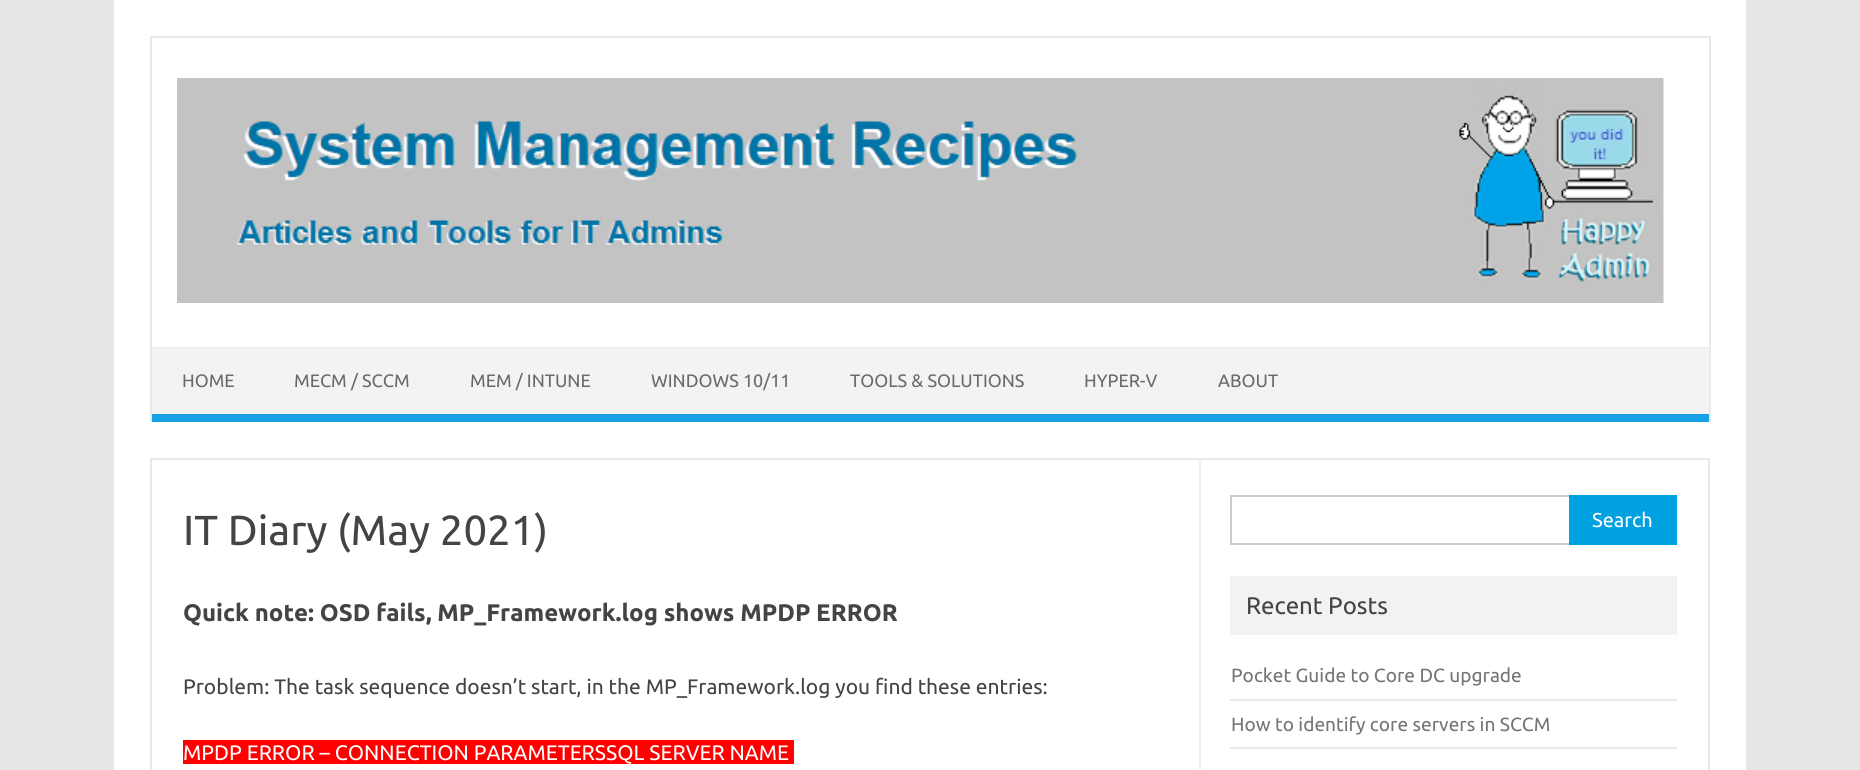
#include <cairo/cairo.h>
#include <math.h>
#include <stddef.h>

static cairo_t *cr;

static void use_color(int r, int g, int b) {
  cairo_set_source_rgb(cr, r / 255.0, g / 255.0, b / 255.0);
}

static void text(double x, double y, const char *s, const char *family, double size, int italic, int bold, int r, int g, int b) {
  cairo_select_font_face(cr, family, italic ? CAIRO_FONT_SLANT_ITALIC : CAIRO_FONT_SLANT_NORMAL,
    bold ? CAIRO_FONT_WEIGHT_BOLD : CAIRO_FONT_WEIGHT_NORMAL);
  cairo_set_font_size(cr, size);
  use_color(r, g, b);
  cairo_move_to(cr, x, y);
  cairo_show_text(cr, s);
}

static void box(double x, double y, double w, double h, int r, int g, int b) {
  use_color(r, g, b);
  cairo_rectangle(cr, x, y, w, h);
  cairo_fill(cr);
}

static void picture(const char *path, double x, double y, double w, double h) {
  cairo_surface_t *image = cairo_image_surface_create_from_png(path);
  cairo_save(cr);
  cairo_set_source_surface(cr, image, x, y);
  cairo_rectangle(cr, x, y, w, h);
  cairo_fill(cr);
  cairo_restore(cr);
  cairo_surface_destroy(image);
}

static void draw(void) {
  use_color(230, 230, 230);
  cairo_paint(cr);
  box(114, 0, 1632, 770, 255, 255, 255);
  box(150, 36, 1560, 2, 233, 233, 233);
  box(1709, 36, 2, 386, 233, 233, 233);
  box(150, 36, 2, 386, 233, 233, 233);
  picture("img_01.png", 177, 78, 1487, 225);
  box(152, 349, 1557, 65, 243, 243, 243);
  box(152, 347, 1557, 2, 237, 237, 237);
  box(152, 414, 1557, 8, 22, 161, 231);
  cairo_rectangle(cr, 151, 459, 1558, 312);
  use_color(233, 233, 233);
  cairo_stroke(cr);
  box(1199, 459, 2, 311, 241, 241, 241);
  box(183, 740, 611, 24, 255, 0, 0);
  cairo_rectangle(cr, 1231, 496, 340, 48);
  use_color(204, 204, 204);
  cairo_stroke(cr);
  box(1569, 495, 108, 50, 0, 161, 224);
  box(1230, 576, 447, 59, 242, 242, 242);
  box(1230, 699, 447, 2, 233, 233, 233);
  box(1230, 747, 447, 2, 233, 233, 233);
  text(182, 387, "HOME", "Ubuntu", 18, 0, 0, 106, 106, 106);
  text(294, 387, "MECM / SCCM", "Ubuntu", 18, 0, 0, 106, 106, 106);
  text(470, 387, "MEM / INTUNE", "Ubuntu", 18, 0, 0, 106, 106, 106);
  text(651, 387, "WINDOWS 10/11", "Ubuntu", 18, 0, 0, 106, 106, 106);
  text(850, 387, "TOOLS & SOLUTIONS", "Ubuntu", 18, 0, 0, 106, 106, 106);
  text(1084, 387, "HYPER-V", "Ubuntu", 18, 0, 0, 106, 106, 106);
  text(1218, 387, "ABOUT", "Ubuntu", 18, 0, 0, 106, 106, 106);
  text(183, 545, "IT Diary (May 2021)", "Ubuntu", 42, 0, 0, 68, 68, 68);
  text(183, 621, "Quick note: OSD fails, MP_Framework.log shows MPDP ERROR", "Ubuntu", 24, 0, 1, 68, 68, 68);
  text(183, 694, "Problem: The task sequence doesn’t start, in the MP_Framework.log you find these entries:", "Ubuntu", 21, 0, 0, 68, 68, 68);
  text(183, 760, "MPDP ERROR – CONNECTION PARAMETERSSQL SERVER NAME", "Ubuntu", 21, 0, 0, 255, 255, 255);
  text(1592, 527, "Search", "Ubuntu", 20, 0, 0, 255, 255, 255);
  text(1246, 614, "Recent Posts", "Ubuntu", 24, 0, 0, 68, 68, 68);
  text(1231, 682, "Pocket Guide to Core DC upgrade", "Ubuntu", 19.1, 0, 0, 117, 117, 117);
  text(1231, 731, "How to identify core servers in SCCM", "Ubuntu", 19.1, 0, 0, 117, 117, 117);
}

int main(void) {
  cairo_surface_t *surface = cairo_image_surface_create(CAIRO_FORMAT_RGB24, 1860, 770);
  cr = cairo_create(surface);
  cairo_font_options_t *options = cairo_font_options_create();
  cairo_font_options_set_hint_metrics(options, CAIRO_HINT_METRICS_OFF);
  cairo_font_options_set_hint_style(options, CAIRO_HINT_STYLE_NONE);
  cairo_set_font_options(cr, options);
  cairo_set_miter_limit(cr, 4);
  draw();
  cairo_surface_write_to_png(surface, "out.png");
  cairo_font_options_destroy(options);
  cairo_destroy(cr);
  cairo_surface_destroy(surface);
  return 0;
}
